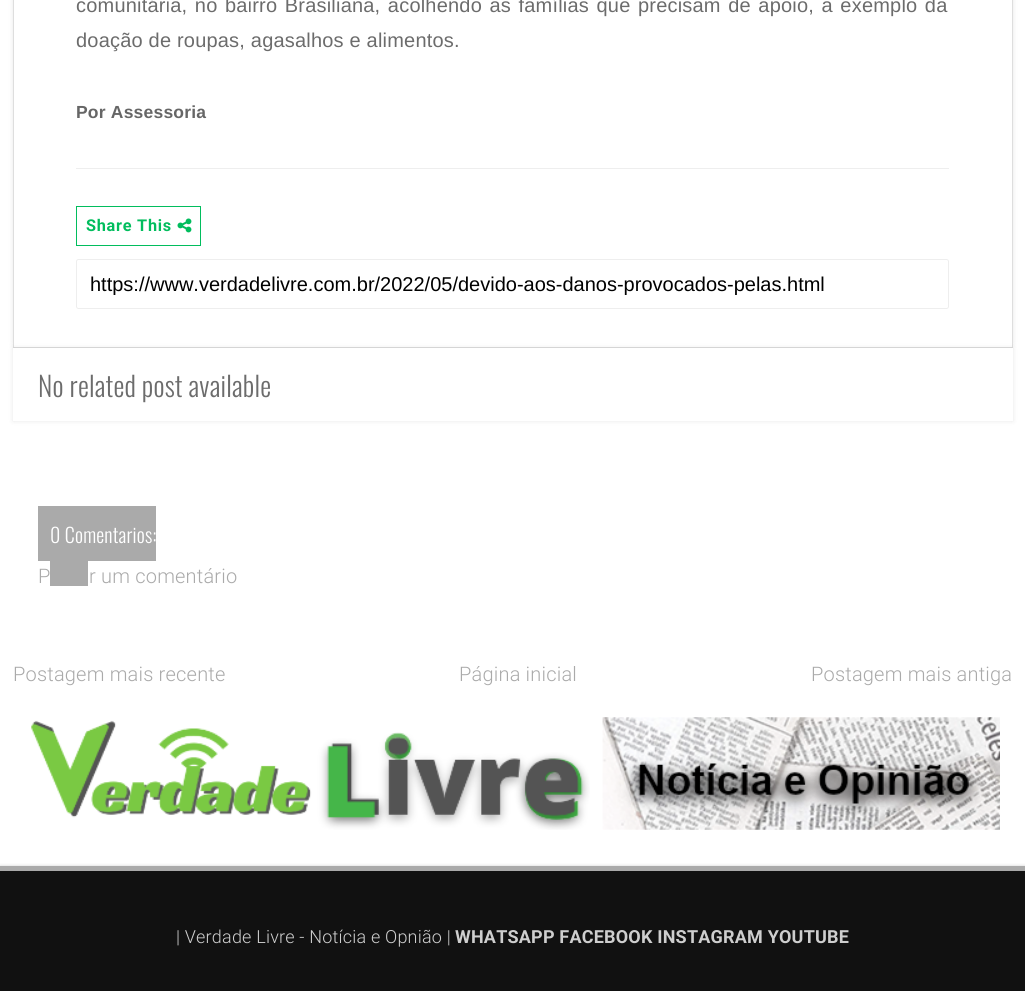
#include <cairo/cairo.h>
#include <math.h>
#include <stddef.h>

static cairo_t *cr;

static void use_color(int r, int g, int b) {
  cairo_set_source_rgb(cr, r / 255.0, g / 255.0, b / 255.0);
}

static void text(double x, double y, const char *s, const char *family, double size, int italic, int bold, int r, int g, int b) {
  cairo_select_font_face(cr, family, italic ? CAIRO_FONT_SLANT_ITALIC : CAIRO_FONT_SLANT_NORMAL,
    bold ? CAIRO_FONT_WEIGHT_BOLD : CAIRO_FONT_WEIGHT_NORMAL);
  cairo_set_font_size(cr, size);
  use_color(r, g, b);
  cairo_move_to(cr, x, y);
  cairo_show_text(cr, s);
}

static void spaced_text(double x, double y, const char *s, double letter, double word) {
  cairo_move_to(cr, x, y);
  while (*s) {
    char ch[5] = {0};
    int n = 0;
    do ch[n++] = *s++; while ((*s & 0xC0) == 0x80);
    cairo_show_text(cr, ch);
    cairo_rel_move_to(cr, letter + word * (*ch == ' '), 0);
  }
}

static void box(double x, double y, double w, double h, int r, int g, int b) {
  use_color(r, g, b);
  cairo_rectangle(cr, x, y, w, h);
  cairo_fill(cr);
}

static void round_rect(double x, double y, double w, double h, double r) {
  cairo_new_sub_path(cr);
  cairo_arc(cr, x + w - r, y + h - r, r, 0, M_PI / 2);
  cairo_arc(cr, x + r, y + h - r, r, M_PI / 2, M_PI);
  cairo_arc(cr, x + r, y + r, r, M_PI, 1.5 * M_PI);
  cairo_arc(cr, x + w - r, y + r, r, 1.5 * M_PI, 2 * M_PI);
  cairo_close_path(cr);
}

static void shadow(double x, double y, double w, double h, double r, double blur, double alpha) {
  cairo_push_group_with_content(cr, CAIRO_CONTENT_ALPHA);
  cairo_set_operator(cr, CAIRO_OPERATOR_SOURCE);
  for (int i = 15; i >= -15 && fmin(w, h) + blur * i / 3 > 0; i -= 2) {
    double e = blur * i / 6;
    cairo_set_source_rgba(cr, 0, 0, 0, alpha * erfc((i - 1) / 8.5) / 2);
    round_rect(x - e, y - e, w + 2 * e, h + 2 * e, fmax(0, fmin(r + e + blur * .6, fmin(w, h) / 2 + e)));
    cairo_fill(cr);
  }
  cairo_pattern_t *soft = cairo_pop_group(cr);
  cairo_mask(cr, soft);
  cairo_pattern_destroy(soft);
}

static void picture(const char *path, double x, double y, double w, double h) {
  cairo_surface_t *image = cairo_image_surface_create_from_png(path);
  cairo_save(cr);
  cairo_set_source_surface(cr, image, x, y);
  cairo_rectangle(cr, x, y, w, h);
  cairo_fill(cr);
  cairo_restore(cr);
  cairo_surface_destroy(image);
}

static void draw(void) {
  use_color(255, 255, 255);
  cairo_paint(cr);
  use_color(0, 0, 0);
  shadow(13, -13, 1000, 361, 5, 2.5, 0.1);
  use_color(255, 255, 255);
  cairo_rectangle(cr, 13.5, -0.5, 999, 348);
  cairo_fill_preserve(cr);
  use_color(222, 222, 222);
  cairo_set_line_width(cr, 1);
  cairo_stroke(cr);
  box(76, 168, 873, 1, 238, 238, 238);
  cairo_rectangle(cr, 76.5, 206.5, 124, 39);
  use_color(1, 189, 93);
  cairo_stroke(cr);
  picture("img_01.png", 177, 218, 15, 15);
  round_rect(76.5, 259.5, 872, 49, 2);
  use_color(238, 238, 238);
  cairo_stroke(cr);
  use_color(0, 0, 0);
  shadow(13, 348, 1000, 73, 0, 2.5, 0.1);
  box(13, 348, 1000, 73, 255, 255, 255);
  box(38, 506, 118, 55, 170, 170, 170);
  box(50, 561, 38, 25, 170, 170, 170);
  picture("img_02.png", 31, 717, 969, 113);
  use_color(0, 0, 0);
  shadow(0, 865, 1025, 125, 0, 1, 0.1);
  box(0, 871, 1025, 120, 17, 17, 17);
  box(0, 866, 1025, 5, 170, 170, 170);
  cairo_select_font_face(cr, "Liberation Sans", CAIRO_FONT_SLANT_NORMAL, CAIRO_FONT_WEIGHT_NORMAL);
  cairo_set_font_size(cr, 20);
  use_color(108, 108, 108);
  spaced_text(76, 12, "comunitária, no bairro Brasiliana, acolhendo as famílias que precisam de apoio, a exemplo da", 0.2, 1.75);
  spaced_text(76, 47, "doação de roupas, agasalhos e alimentos.", 0.2, 0);
  cairo_select_font_face(cr, "Liberation Sans", CAIRO_FONT_SLANT_NORMAL, CAIRO_FONT_WEIGHT_BOLD);
  cairo_set_font_size(cr, 17.5);
  use_color(102, 102, 102);
  spaced_text(76, 118, "Por Assessoria", 0.2, 0);
  cairo_select_font_face(cr, "Roboto", CAIRO_FONT_SLANT_NORMAL, CAIRO_FONT_WEIGHT_BOLD);
  cairo_set_font_size(cr, 16.25);
  use_color(1, 189, 93);
  spaced_text(86, 231, "Share This", 0.75, 0);
  cairo_save(cr);
  cairo_rectangle(cr, 90, 273, 845, 22);
  cairo_clip(cr);
  text(90, 291, "https://www.verdadelivre.com.br/2022/05/devido-aos-danos-provocados-pelas.html", "Liberation Sans", 20, 0, 0, 0, 0, 0);
  cairo_restore(cr);
  cairo_select_font_face(cr, "Oswald Light", CAIRO_FONT_SLANT_NORMAL, CAIRO_FONT_WEIGHT_NORMAL);
  cairo_set_font_size(cr, 27.5);
  use_color(108, 108, 108);
  spaced_text(38, 397, "No related post available", 0.2, 0);
  cairo_set_font_size(cr, 20);
  use_color(255, 255, 255);
  spaced_text(50, 543, "0 Comentarios:", 0.2, 0);
  cairo_select_font_face(cr, "Roboto Light", CAIRO_FONT_SLANT_NORMAL, CAIRO_FONT_WEIGHT_NORMAL);
  use_color(170, 170, 170);
  spaced_text(38, 583, "P", 0.2, 0);
  spaced_text(89, 583, "r um comentário", 0.2, 0);
  spaced_text(13, 681, "Postagem mais recente", 0.2, 0);
  spaced_text(459, 681, "Página inicial", 0.2, 0);
  spaced_text(811, 681, "Postagem mais antiga", 0.2, 0);
  cairo_set_font_size(cr, 18);
  use_color(206, 206, 206);
  spaced_text(176, 943, "| Verdade Livre - Notícia e Opnião |", 0.2, 0);
  cairo_select_font_face(cr, "Roboto", CAIRO_FONT_SLANT_NORMAL, CAIRO_FONT_WEIGHT_BOLD);
  spaced_text(455, 943, "WHATSAPP FACEBOOK INSTAGRAM YOUTUBE", 0.2, 0);
}

int main(void) {
  cairo_surface_t *surface = cairo_image_surface_create(CAIRO_FORMAT_RGB24, 1025, 991);
  cr = cairo_create(surface);
  cairo_font_options_t *options = cairo_font_options_create();
  cairo_font_options_set_hint_metrics(options, CAIRO_HINT_METRICS_OFF);
  cairo_font_options_set_hint_style(options, CAIRO_HINT_STYLE_NONE);
  cairo_set_font_options(cr, options);
  cairo_set_miter_limit(cr, 4);
  draw();
  cairo_surface_write_to_png(surface, "out.png");
  cairo_font_options_destroy(options);
  cairo_destroy(cr);
  cairo_surface_destroy(surface);
  return 0;
}
